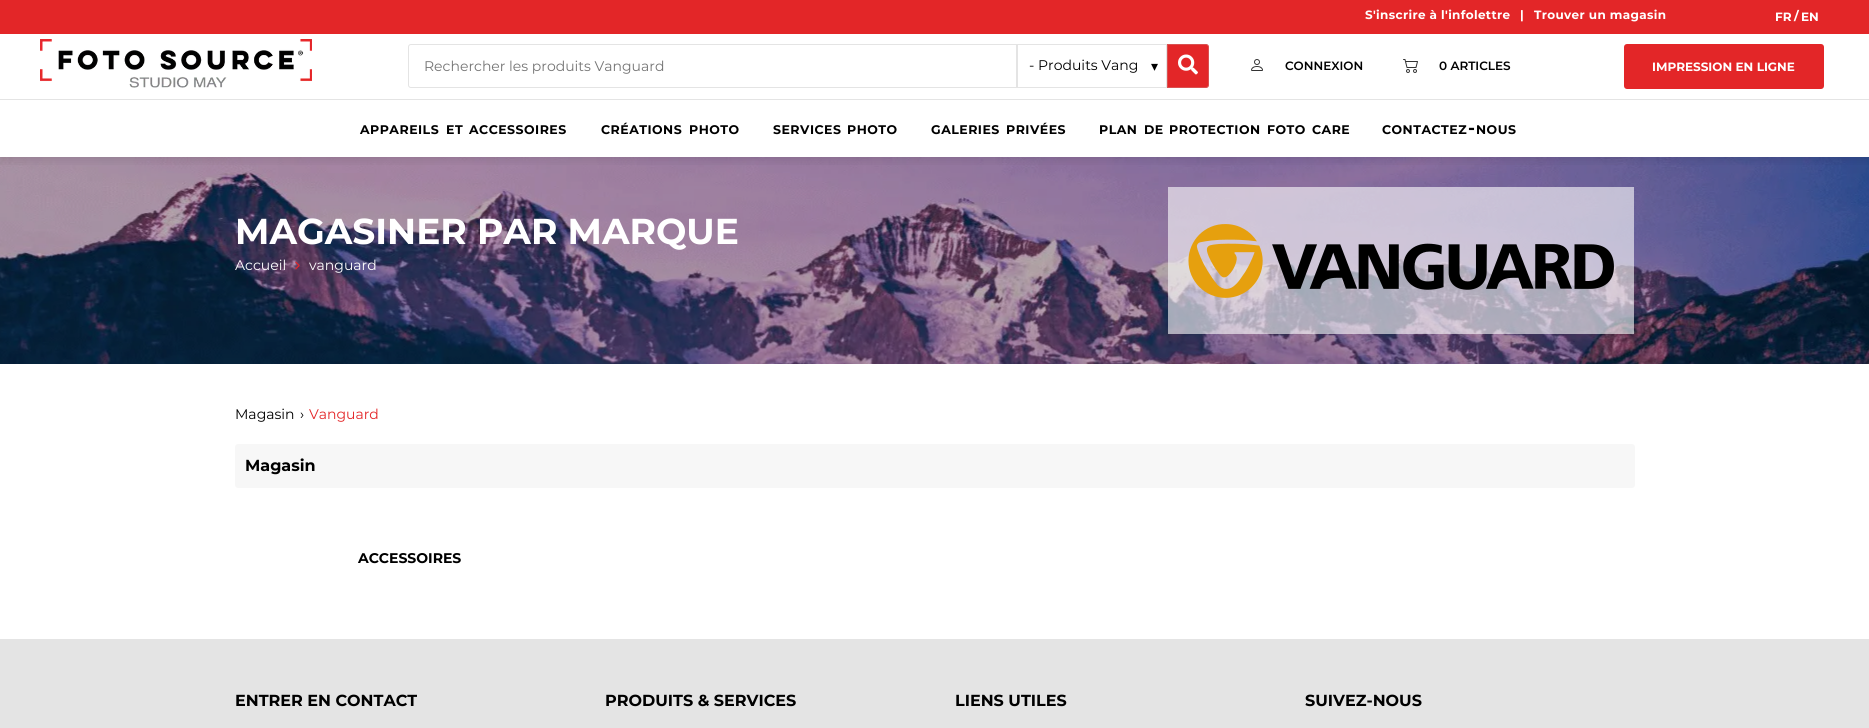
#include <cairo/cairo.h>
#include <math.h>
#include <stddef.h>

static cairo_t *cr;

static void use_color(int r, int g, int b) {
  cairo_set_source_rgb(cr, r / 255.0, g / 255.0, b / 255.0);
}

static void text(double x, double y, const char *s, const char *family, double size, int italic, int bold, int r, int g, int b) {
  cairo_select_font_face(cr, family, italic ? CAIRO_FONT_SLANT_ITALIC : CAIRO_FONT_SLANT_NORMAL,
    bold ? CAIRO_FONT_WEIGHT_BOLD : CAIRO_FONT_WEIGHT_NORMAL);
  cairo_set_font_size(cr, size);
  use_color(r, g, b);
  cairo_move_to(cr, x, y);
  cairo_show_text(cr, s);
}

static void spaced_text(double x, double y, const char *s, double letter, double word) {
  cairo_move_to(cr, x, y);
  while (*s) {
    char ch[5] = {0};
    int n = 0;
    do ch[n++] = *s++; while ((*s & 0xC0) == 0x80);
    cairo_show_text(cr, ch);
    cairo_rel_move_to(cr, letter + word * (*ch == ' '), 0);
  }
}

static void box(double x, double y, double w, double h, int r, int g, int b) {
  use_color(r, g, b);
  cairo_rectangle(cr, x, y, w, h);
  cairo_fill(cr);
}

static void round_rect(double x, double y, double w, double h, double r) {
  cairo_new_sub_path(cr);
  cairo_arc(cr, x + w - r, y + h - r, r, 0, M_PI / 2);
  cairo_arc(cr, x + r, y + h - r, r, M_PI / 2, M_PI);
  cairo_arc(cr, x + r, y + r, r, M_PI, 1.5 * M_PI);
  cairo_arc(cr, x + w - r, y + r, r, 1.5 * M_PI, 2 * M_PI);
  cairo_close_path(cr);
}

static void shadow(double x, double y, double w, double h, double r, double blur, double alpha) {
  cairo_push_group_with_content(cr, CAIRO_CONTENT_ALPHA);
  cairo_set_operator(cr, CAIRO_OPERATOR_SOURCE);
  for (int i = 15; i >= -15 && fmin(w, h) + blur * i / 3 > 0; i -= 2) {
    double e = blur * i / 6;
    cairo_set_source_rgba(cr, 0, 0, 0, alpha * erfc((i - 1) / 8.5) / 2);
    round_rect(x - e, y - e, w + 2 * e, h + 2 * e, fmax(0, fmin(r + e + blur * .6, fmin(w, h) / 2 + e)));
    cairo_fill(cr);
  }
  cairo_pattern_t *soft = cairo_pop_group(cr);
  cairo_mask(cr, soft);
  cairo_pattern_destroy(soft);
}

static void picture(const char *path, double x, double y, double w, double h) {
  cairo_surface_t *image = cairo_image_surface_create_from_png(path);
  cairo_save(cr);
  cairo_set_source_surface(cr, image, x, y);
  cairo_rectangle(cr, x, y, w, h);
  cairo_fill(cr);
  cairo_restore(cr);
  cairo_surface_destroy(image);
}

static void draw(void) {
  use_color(255, 255, 255);
  cairo_paint(cr);
  picture("img_05.png", 0, 157, 1869, 207);
  cairo_save(cr);
  cairo_rectangle(cr, 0, 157, 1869, 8);
  cairo_clip(cr);
  use_color(0, 0, 0);
  shadow(0, 3, 1869, 157, 0, 5.5, 0.1);
  cairo_restore(cr);
  box(0, 0, 1869, 34, 227, 38, 40);
  picture("img_01.png", 40, 39, 272, 49);
  cairo_new_path(cr);
  cairo_move_to(cr, 411, 44.5);
  cairo_line_to(cr, 1016.5, 44.5);
  cairo_line_to(cr, 1016.5, 87.5);
  cairo_line_to(cr, 411, 87.5);
  cairo_curve_to(cr, 409.5, 87.5, 408.5, 86.5, 408.5, 85);
  cairo_line_to(cr, 408.5, 47);
  cairo_curve_to(cr, 408.5, 45.5, 409.5, 44.5, 411, 44.5);
  cairo_close_path(cr);
  use_color(228, 228, 228);
  cairo_set_line_width(cr, 1);
  cairo_stroke(cr);
  cairo_rectangle(cr, 1017.5, 44.5, 149, 43);
  cairo_stroke(cr);
  use_color(227, 38, 40);
  cairo_new_path(cr);
  cairo_move_to(cr, 1167.5, 44.5);
  cairo_line_to(cr, 1206, 44.5);
  cairo_curve_to(cr, 1207.5, 44.5, 1208.5, 45.5, 1208.5, 47);
  cairo_line_to(cr, 1208.5, 85);
  cairo_curve_to(cr, 1208.5, 86.5, 1207.5, 87.5, 1206, 87.5);
  cairo_line_to(cr, 1167.5, 87.5);
  cairo_close_path(cr);
  cairo_fill_preserve(cr);
  use_color(218, 81, 81);
  cairo_stroke(cr);
  picture("img_02.png", 1178, 54, 20, 21);
  picture("img_03.png", 1251, 59, 12, 12);
  picture("img_04.png", 1403, 59, 15, 14);
  use_color(227, 38, 40);
  round_rect(1624, 44, 200, 45, 3);
  cairo_fill(cr);
  box(0, 99, 1869, 1, 228, 228, 228);
  picture("img_06.png", 295, 261, 5, 9);
  cairo_set_source_rgba(cr, 1, 1, 1, 0.6);
  cairo_rectangle(cr, 1168, 187, 466, 147);
  cairo_fill(cr);
  picture("img_07.png", 1188, 224, 426, 74);
  use_color(247, 247, 247);
  round_rect(235, 444, 1400, 44, 3);
  cairo_fill(cr);
  box(0, 639, 1869, 89, 228, 228, 228);
  cairo_select_font_face(cr, "Montserrat", CAIRO_FONT_SLANT_NORMAL, CAIRO_FONT_WEIGHT_BOLD);
  cairo_set_font_size(cr, 12);
  use_color(255, 255, 255);
  spaced_text(1365, 19, "S'inscrire à l'infolettre", 0.35, 0);
  text(1520, 19, "|", "Montserrat", 12, 0, 1, 255, 255, 255);
  spaced_text(1534, 19, "Trouver un magasin", 0.35, 0);
  text(1775, 21, "FR", "Montserrat", 12, 0, 1, 255, 255, 255);
  text(1794, 20, "/", "Montserrat", 12, 0, 1, 255, 255, 255);
  text(1801, 21, "EN", "Montserrat", 12, 0, 1, 255, 255, 255);
  text(424, 71, "Rechercher les produits Vanguard", "Montserrat", 14, 0, 0, 117, 117, 117);
  text(1029, 70, "- Produits Vang", "Montserrat", 14, 0, 0, 0, 0, 0);
  text(1151, 71, "▾", "DejaVu Sans", 14, 0, 0, 0, 0, 0);
  text(1285, 70, "CONNEXION", "Montserrat SemiBold", 12, 0, 0, 0, 0, 0);
  text(1439, 70, "0 ARTICLES", "Montserrat SemiBold", 12, 0, 0, 0, 0, 0);
  text(1652, 71, "IMPRESSION EN LIGNE", "Montserrat", 12, 0, 1, 255, 255, 255);
  cairo_set_font_size(cr, 12.5);
  use_color(0, 0, 0);
  spaced_text(360, 134, "APPAREILS", 0.5, 0);
  spaced_text(446, 134, "ET", 0.5, 0);
  spaced_text(469, 134, "ACCESSOIRES", 0.5, 0);
  spaced_text(601, 134, "CRÉATIONS", 0.5, 0);
  spaced_text(689, 134, "PHOTO", 0.5, 0);
  spaced_text(773, 134, "SERVICES", 0.5, 0);
  spaced_text(847, 134, "PHOTO", 0.5, 0);
  spaced_text(931, 134, "GALERIES", 0.5, 0);
  spaced_text(1006, 134, "PRIVÉES", 0.5, 0);
  spaced_text(1099, 134, "PLAN", 0.5, 0);
  spaced_text(1144, 134, "DE", 0.5, 0);
  spaced_text(1169, 134, "PROTECTION", 0.5, 0);
  spaced_text(1267, 134, "FOTO", 0.5, 0);
  spaced_text(1312, 134, "CARE", 0.5, 0);
  spaced_text(1382, 134, "CONTACTEZ", 0.5, 0);
  cairo_set_font_size(cr, 18);
  spaced_text(1468, 134, "-", 0.5, 0);
  cairo_set_font_size(cr, 12.5);
  spaced_text(1476, 134, "NOUS", 0.5, 0);
  text(235, 244, "MAGASINER PAR MARQUE", "Montserrat", 36, 0, 1, 255, 255, 255);
  text(235, 270, "Accueil", "Montserrat", 14, 0, 0, 255, 255, 255);
  text(309, 270, "vanguard", "Montserrat", 14, 0, 0, 255, 255, 255);
  text(235, 419, "Magasin", "Montserrat", 14, 0, 0, 0, 0, 0);
  text(300, 419, "›", "Montserrat", 14, 0, 0, 0, 0, 0);
  text(309, 419, "Vanguard", "Montserrat", 14, 0, 0, 227, 38, 40);
  text(245, 471, "Magasin", "Montserrat", 16, 0, 1, 0, 0, 0);
  text(358, 563, "ACCESSOIRES", "Montserrat", 14, 0, 1, 0, 0, 0);
  text(235, 706, "ENTRER EN CONTACT", "Montserrat", 16, 0, 1, 0, 0, 0);
  text(605, 706, "PRODUITS & SERVICES", "Montserrat", 16, 0, 1, 0, 0, 0);
  text(955, 706, "LIENS UTILES", "Montserrat", 16, 0, 1, 0, 0, 0);
  text(1305, 706, "SUIVEZ-NOUS", "Montserrat", 16, 0, 1, 0, 0, 0);
}

int main(void) {
  cairo_surface_t *surface = cairo_image_surface_create(CAIRO_FORMAT_RGB24, 1869, 728);
  cr = cairo_create(surface);
  cairo_font_options_t *options = cairo_font_options_create();
  cairo_font_options_set_hint_metrics(options, CAIRO_HINT_METRICS_OFF);
  cairo_font_options_set_hint_style(options, CAIRO_HINT_STYLE_NONE);
  cairo_set_font_options(cr, options);
  cairo_set_miter_limit(cr, 4);
  draw();
  cairo_surface_write_to_png(surface, "out.png");
  cairo_font_options_destroy(options);
  cairo_destroy(cr);
  cairo_surface_destroy(surface);
  return 0;
}
